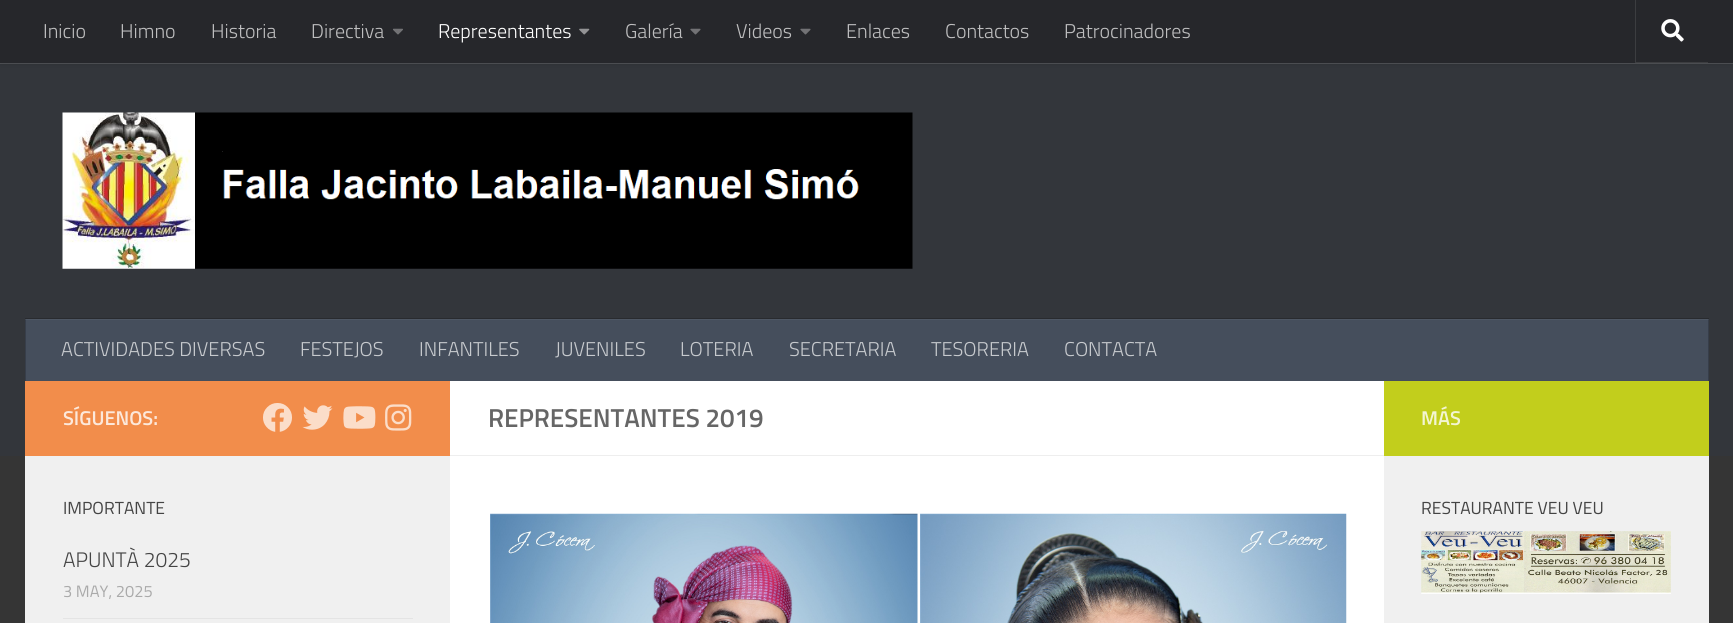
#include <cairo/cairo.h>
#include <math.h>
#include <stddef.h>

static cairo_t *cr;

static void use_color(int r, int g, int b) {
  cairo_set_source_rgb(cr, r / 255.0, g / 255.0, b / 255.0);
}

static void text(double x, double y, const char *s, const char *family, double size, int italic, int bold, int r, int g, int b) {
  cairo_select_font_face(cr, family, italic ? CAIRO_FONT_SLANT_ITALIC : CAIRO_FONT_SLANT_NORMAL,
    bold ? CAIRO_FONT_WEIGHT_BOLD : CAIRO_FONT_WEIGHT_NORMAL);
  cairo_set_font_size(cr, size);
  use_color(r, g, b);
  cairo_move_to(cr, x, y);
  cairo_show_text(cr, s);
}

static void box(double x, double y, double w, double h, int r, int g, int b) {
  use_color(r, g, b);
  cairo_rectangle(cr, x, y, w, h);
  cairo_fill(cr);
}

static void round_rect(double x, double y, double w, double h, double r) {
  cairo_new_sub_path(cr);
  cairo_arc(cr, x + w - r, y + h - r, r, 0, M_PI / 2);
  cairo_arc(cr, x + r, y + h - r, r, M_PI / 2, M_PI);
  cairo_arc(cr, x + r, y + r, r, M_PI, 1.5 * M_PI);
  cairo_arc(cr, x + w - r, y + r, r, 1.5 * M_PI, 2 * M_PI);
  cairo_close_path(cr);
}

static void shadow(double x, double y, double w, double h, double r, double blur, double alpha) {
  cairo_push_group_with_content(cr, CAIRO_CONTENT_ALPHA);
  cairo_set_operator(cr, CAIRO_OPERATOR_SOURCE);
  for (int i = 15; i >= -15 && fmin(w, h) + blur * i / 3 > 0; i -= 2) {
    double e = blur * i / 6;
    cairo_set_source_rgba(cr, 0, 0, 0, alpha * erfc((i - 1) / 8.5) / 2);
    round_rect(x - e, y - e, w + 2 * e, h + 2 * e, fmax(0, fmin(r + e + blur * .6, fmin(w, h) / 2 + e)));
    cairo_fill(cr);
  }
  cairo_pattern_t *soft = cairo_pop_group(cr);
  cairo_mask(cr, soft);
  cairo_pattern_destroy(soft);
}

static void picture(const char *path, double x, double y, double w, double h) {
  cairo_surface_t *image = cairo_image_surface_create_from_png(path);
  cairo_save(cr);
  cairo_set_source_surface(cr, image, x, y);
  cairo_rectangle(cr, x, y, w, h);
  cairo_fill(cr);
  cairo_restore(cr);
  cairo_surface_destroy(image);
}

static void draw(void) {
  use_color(53, 53, 53);
  cairo_paint(cr);
  box(0, 64, 1733, 392, 51, 54, 59);
  use_color(82, 84, 88);
  cairo_new_path(cr);
  cairo_move_to(cr, 0, 62);
  cairo_line_to(cr, 0, 64);
  cairo_line_to(cr, 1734, 64);
  cairo_line_to(cr, 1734, 1);
  cairo_line_to(cr, 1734, 62);
  cairo_close_path(cr);
  cairo_fill(cr);
  use_color(0, 0, 0);
  shadow(0, 0, 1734, 63, 0, 3, 0.2);
  box(0, 0, 1733, 63, 38, 39, 43);
  picture("img_01.png", 393, 28, 10, 7);
  picture("img_02.png", 579, 28, 11, 7);
  picture("img_03.png", 690, 28, 11, 7);
  picture("img_03.png", 800, 28, 11, 7);
  use_color(60, 61, 64);
  cairo_new_path(cr);
  cairo_move_to(cr, 1635, 0);
  cairo_line_to(cr, 1635, 63);
  cairo_line_to(cr, 1708, 63);
  cairo_line_to(cr, 1708, 62);
  cairo_line_to(cr, 1636, 62);
  cairo_line_to(cr, 1636, 0);
  cairo_close_path(cr);
  cairo_fill(cr);
  picture("img_04.png", 1661, 19, 23, 23);
  picture("img_05.png", 62, 112, 851, 157);
  use_color(41, 43, 47);
  cairo_new_path(cr);
  cairo_move_to(cr, 25, 318);
  cairo_line_to(cr, 25, 319);
  cairo_line_to(cr, 1709, 319);
  cairo_line_to(cr, 1709, 380);
  cairo_line_to(cr, 1709, 318);
  cairo_close_path(cr);
  cairo_fill(cr);
  box(26, 320, 1682, 61, 69, 78, 92);
  box(25, 319, 1684, 1, 78, 87, 100);
  box(1708, 319, 1, 62, 55, 62, 74);
  box(1708, 319, 1, 1, 65, 72, 83);
  box(25, 319, 1, 62, 55, 62, 74);
  box(25, 319, 1, 1, 65, 72, 83);
  box(450, 381, 934, 242, 255, 255, 255);
  box(25, 381, 425, 75, 242, 141, 75);
  picture("img_06.png", 263, 403, 29, 29);
  picture("img_07.png", 302, 405, 31, 25);
  picture("img_08.png", 343, 406, 33, 23);
  picture("img_09.png", 385, 404, 27, 27);
  box(25, 456, 425, 167, 240, 240, 240);
  box(63, 618, 350, 1, 228, 228, 228);
  box(450, 455, 934, 1, 238, 238, 238);
  picture("img_10.png", 490, 513, 428, 110);
  picture("img_11.png", 920, 513, 427, 110);
  box(1384, 381, 325, 75, 194, 206, 28);
  box(1384, 456, 325, 167, 240, 240, 240);
  picture("img_12.png", 1421, 531, 250, 63);
  text(43, 38, "Inicio", "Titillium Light", 20, 0, 0, 190, 190, 191);
  text(120, 38, "Himno", "Titillium Light", 20, 0, 0, 190, 190, 191);
  text(211, 38, "Historia", "Titillium Light", 20, 0, 0, 190, 190, 191);
  text(311, 38, "Directiva", "Titillium Light", 20, 0, 0, 190, 190, 191);
  text(438, 38, "Representantes", "Titillium Light", 20, 0, 0, 255, 255, 255);
  text(625, 38, "Galería", "Titillium Light", 20, 0, 0, 190, 190, 191);
  text(736, 38, "Videos", "Titillium Light", 20, 0, 0, 190, 190, 191);
  text(846, 38, "Enlaces", "Titillium Light", 20, 0, 0, 190, 190, 191);
  text(945, 38, "Contactos", "Titillium Light", 20, 0, 0, 190, 190, 191);
  text(1064, 38, "Patrocinadores", "Titillium Light", 20, 0, 0, 190, 190, 191);
  text(61, 356, "ACTIVIDADES DIVERSAS", "Titillium Light", 20, 0, 0, 199, 202, 206);
  text(300, 356, "FESTEJOS", "Titillium Light", 20, 0, 0, 199, 202, 206);
  text(419, 356, "INFANTILES", "Titillium Light", 20, 0, 0, 199, 202, 206);
  text(555, 356, "JUVENILES", "Titillium Light", 20, 0, 0, 199, 202, 206);
  text(680, 356, "LOTERIA", "Titillium Light", 20, 0, 0, 199, 202, 206);
  text(789, 356, "SECRETARIA", "Titillium Light", 20, 0, 0, 199, 202, 206);
  text(931, 356, "TESORERIA", "Titillium Light", 20, 0, 0, 199, 202, 206);
  text(1064, 356, "CONTACTA", "Titillium Light", 20, 0, 0, 199, 202, 206);
  text(63, 425, "SÍGUENOS:", "Titillium SemiBold", 20, 0, 0, 252, 232, 219);
  text(63, 514, "IMPORTANTE", "Titillium", 17.5, 0, 0, 68, 68, 68);
  text(63, 567, "APUNTÀ 2025", "Titillium Light", 21, 0, 0, 68, 68, 68);
  text(63, 597, "3 MAY, 2025", "Titillium", 16.5, 0, 0, 170, 170, 170);
  text(488, 427, "REPRESENTANTES 2019", "Titillium SemiBold", 26, 0, 0, 102, 102, 102);
  text(1421, 425, "MÁS", "Titillium SemiBold", 20, 0, 0, 243, 245, 210);
  text(1421, 514, "RESTAURANTE VEU VEU", "Titillium", 17.5, 0, 0, 68, 68, 68);
}

int main(void) {
  cairo_surface_t *surface = cairo_image_surface_create(CAIRO_FORMAT_RGB24, 1733, 623);
  cr = cairo_create(surface);
  cairo_font_options_t *options = cairo_font_options_create();
  cairo_font_options_set_hint_metrics(options, CAIRO_HINT_METRICS_OFF);
  cairo_font_options_set_hint_style(options, CAIRO_HINT_STYLE_NONE);
  cairo_set_font_options(cr, options);
  cairo_set_miter_limit(cr, 4);
  draw();
  cairo_surface_write_to_png(surface, "out.png");
  cairo_font_options_destroy(options);
  cairo_destroy(cr);
  cairo_surface_destroy(surface);
  return 0;
}
